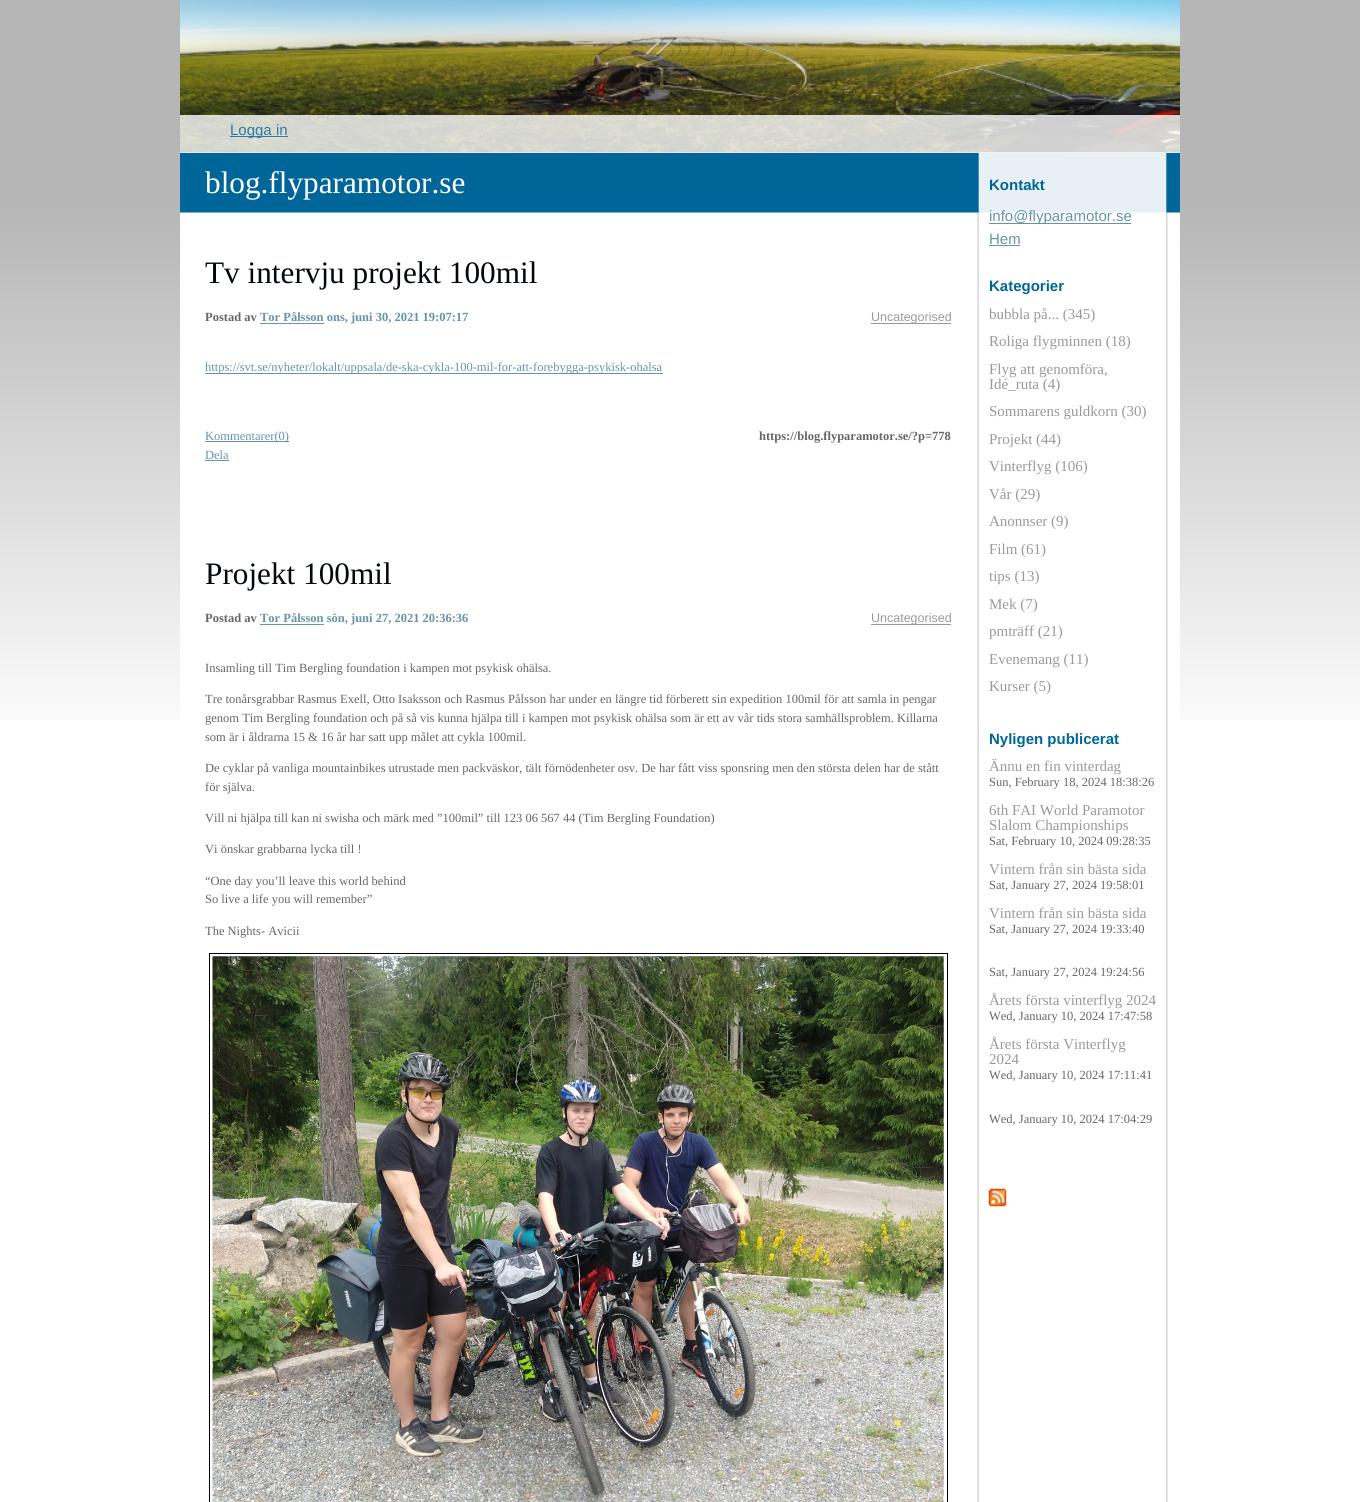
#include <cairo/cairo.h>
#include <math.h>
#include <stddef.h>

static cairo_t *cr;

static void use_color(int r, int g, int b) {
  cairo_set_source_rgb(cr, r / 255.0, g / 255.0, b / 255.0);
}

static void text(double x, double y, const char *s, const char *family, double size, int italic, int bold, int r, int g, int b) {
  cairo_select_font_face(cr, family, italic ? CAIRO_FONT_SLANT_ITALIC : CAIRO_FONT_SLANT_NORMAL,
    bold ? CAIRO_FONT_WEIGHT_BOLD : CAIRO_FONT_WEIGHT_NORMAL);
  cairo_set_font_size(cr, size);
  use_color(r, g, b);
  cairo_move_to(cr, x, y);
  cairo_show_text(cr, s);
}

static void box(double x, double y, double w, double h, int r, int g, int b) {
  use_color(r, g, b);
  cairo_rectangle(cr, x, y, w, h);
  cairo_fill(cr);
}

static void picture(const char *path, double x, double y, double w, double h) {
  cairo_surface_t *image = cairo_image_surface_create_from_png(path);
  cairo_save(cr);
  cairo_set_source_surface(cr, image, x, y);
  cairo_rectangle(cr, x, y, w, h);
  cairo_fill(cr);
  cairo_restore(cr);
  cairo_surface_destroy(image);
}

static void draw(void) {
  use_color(255, 255, 255);
  cairo_paint(cr);
  picture("img_01.png", 0, 0, 1360, 720);
  box(180, 152, 1000, 568, 255, 255, 255);
  picture("img_02.png", 977, 152, 191, 1350);
  picture("img_05.png", 180, 152, 1000, 61);
  picture("img_03.png", 180, 0, 1000, 153);
  cairo_set_source_rgba(cr, 1, 1, 1, 0.8);
  cairo_rectangle(cr, 180, 115, 1000, 38);
  cairo_fill(cr);
  cairo_set_source_rgba(cr, 0, 0.4, 0.6, 0.8);
  cairo_rectangle(cr, 230, 136, 58, 1);
  cairo_fill(cr);
  box(989, 223, 142, 1, 101, 147, 170);
  box(989, 245, 31, 1, 101, 147, 170);
  picture("img_04.png", 988, 1188, 19, 19);
  box(260, 323, 64, 1, 101, 147, 170);
  box(871, 323, 80, 1, 153, 153, 153);
  box(205, 373, 458, 1, 101, 147, 170);
  box(205, 441, 84, 1, 101, 147, 170);
  box(205, 460, 24, 1, 101, 147, 170);
  box(260, 624, 64, 1, 101, 147, 170);
  box(871, 624, 80, 1, 153, 153, 153);
  cairo_rectangle(cr, 209.5, 953.5, 738, 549);
  use_color(0, 0, 0);
  cairo_set_line_width(cr, 1);
  cairo_stroke(cr);
  picture("img_06.png", 212, 956, 732, 546);
  text(230, 135, "Logga in", "Liberation Sans", 15, 0, 0, 42, 124, 164);
  text(989, 190, "Kontakt", "Liberation Sans", 15, 0, 1, 0, 102, 153);
  text(989, 221, "info@flyparamotor.se", "Liberation Sans", 15, 0, 0, 101, 147, 170);
  text(989, 244, "Hem", "Liberation Sans", 15, 0, 0, 101, 147, 170);
  text(989, 291, "Kategorier", "Liberation Sans", 15, 0, 1, 0, 102, 153);
  text(989, 319, "bubbla på... (345)", "Liberation Serif", 15, 0, 0, 153, 153, 153);
  text(989, 346, "Roliga flygminnen (18)", "Liberation Serif", 15, 0, 0, 153, 153, 153);
  text(989, 374, "Flyg att genomföra,", "Liberation Serif", 15, 0, 0, 153, 153, 153);
  text(989, 389, "Idé_ruta (4)", "Liberation Serif", 15, 0, 0, 153, 153, 153);
  text(989, 416, "Sommarens guldkorn (30)", "Liberation Serif", 15, 0, 0, 153, 153, 153);
  text(989, 444, "Projekt (44)", "Liberation Serif", 15, 0, 0, 153, 153, 153);
  text(989, 471, "Vinterflyg (106)", "Liberation Serif", 15, 0, 0, 153, 153, 153);
  text(989, 499, "Vår (29)", "Liberation Serif", 15, 0, 0, 153, 153, 153);
  text(989, 526, "Anonnser (9)", "Liberation Serif", 15, 0, 0, 153, 153, 153);
  text(989, 554, "Film (61)", "Liberation Serif", 15, 0, 0, 153, 153, 153);
  text(989, 581, "tips (13)", "Liberation Serif", 15, 0, 0, 153, 153, 153);
  text(989, 609, "Mek (7)", "Liberation Serif", 15, 0, 0, 153, 153, 153);
  text(989, 636, "pmträff (21)", "Liberation Serif", 15, 0, 0, 153, 153, 153);
  text(989, 664, "Evenemang (11)", "Liberation Serif", 15, 0, 0, 153, 153, 153);
  text(989, 691, "Kurser (5)", "Liberation Serif", 15, 0, 0, 153, 153, 153);
  text(989, 744, "Nyligen publicerat", "Liberation Sans", 15, 0, 1, 0, 102, 153);
  text(989, 771, "Ännu en fin vinterdag", "Liberation Serif", 15, 0, 0, 153, 153, 153);
  text(989, 786, "Sun, February 18, 2024 18:38:26", "Liberation Serif", 12.5, 0, 0, 102, 102, 102);
  text(989, 815, "6th FAI World Paramotor", "Liberation Serif", 15, 0, 0, 153, 153, 153);
  text(989, 830, "Slalom Championships", "Liberation Serif", 15, 0, 0, 153, 153, 153);
  text(989, 845, "Sat, February 10, 2024 09:28:35", "Liberation Serif", 12.5, 0, 0, 102, 102, 102);
  text(989, 874, "Vintern från sin bästa sida", "Liberation Serif", 15, 0, 0, 153, 153, 153);
  text(989, 889, "Sat, January 27, 2024 19:58:01", "Liberation Serif", 12.5, 0, 0, 102, 102, 102);
  text(989, 918, "Vintern från sin bästa sida", "Liberation Serif", 15, 0, 0, 153, 153, 153);
  text(989, 933, "Sat, January 27, 2024 19:33:40", "Liberation Serif", 12.5, 0, 0, 102, 102, 102);
  text(989, 976, "Sat, January 27, 2024 19:24:56", "Liberation Serif", 12.5, 0, 0, 102, 102, 102);
  text(989, 1005, "Årets första vinterflyg 2024", "Liberation Serif", 15, 0, 0, 153, 153, 153);
  text(989, 1020, "Wed, January 10, 2024 17:47:58", "Liberation Serif", 12.5, 0, 0, 102, 102, 102);
  text(989, 1049, "Årets första Vinterflyg", "Liberation Serif", 15, 0, 0, 153, 153, 153);
  text(989, 1064, "2024", "Liberation Serif", 15, 0, 0, 153, 153, 153);
  text(989, 1079, "Wed, January 10, 2024 17:11:41", "Liberation Serif", 12.5, 0, 0, 102, 102, 102);
  text(989, 1123, "Wed, January 10, 2024 17:04:29", "Liberation Serif", 12.5, 0, 0, 102, 102, 102);
  text(205, 193, "blog.flyparamotor.se", "Liberation Serif", 31.25, 0, 0, 255, 255, 255);
  text(205, 283, "Tv intervju projekt 100mil", "Liberation Serif", 31.25, 0, 0, 2, 9, 13);
  text(205, 321, "Postad av", "Liberation Serif", 12.5, 0, 1, 102, 102, 102);
  text(260, 321, "Tor Pålsson ons, juni 30, 2021 19:07:17", "Liberation Serif", 12.5, 0, 1, 101, 147, 170);
  text(871, 321, "Uncategorised", "Liberation Sans", 12.5, 0, 0, 153, 153, 153);
  text(205, 371, "https://svt.se/nyheter/lokalt/uppsala/de-ska-cykla-100-mil-for-att-forebygga-psykisk-ohalsa", "Liberation Serif", 12.5, 0, 0, 101, 147, 170);
  text(205, 440, "Kommentarer(0)", "Liberation Serif", 12.5, 0, 0, 101, 147, 170);
  text(759, 440, "https://blog.flyparamotor.se/?p=778", "Liberation Serif", 12.5, 0, 1, 102, 102, 102);
  text(205, 459, "Dela", "Liberation Serif", 12.5, 0, 0, 101, 147, 170);
  text(205, 584, "Projekt 100mil", "Liberation Serif", 31.25, 0, 0, 2, 9, 13);
  text(205, 622, "Postad av", "Liberation Serif", 12.5, 0, 1, 102, 102, 102);
  text(260, 622, "Tor Pålsson sön, juni 27, 2021 20:36:36", "Liberation Serif", 12.5, 0, 1, 101, 147, 170);
  text(871, 622, "Uncategorised", "Liberation Sans", 12.5, 0, 0, 153, 153, 153);
  text(205, 672, "Insamling till Tim Bergling foundation i kampen mot psykisk ohälsa.", "Liberation Serif", 12.5, 0, 0, 102, 102, 102);
  text(205, 703, "Tre tonårsgrabbar Rasmus Exell, Otto Isaksson och Rasmus Pålsson har under en längre tid förberett sin expedition 100mil för att samla in pengar", "Liberation Serif", 12.5, 0, 0, 102, 102, 102);
  text(205, 722, "genom Tim Bergling foundation och på så vis kunna hjälpa till i kampen mot psykisk ohälsa som är ett av vår tids stora samhällsproblem. Killarna", "Liberation Serif", 12.5, 0, 0, 102, 102, 102);
  text(205, 741, "som är i åldrarna 15 & 16 år har satt upp målet att cykla 100mil.", "Liberation Serif", 12.5, 0, 0, 102, 102, 102);
  text(205, 772, "De cyklar på vanliga mountainbikes utrustade men packväskor, tält förnödenheter osv. De har fått viss sponsring men den största delen har de stått", "Liberation Serif", 12.5, 0, 0, 102, 102, 102);
  text(205, 791, "för själva.", "Liberation Serif", 12.5, 0, 0, 102, 102, 102);
  text(205, 822, "Vill ni hjälpa till kan ni swisha och märk med ”100mil” till 123 06 567 44 (Tim Bergling Foundation)", "Liberation Serif", 12.5, 0, 0, 102, 102, 102);
  text(205, 853, "Vi önskar grabbarna lycka till !", "Liberation Serif", 12.5, 0, 0, 102, 102, 102);
  text(205, 885, "“One day you’ll leave this world behind", "Liberation Serif", 12.5, 0, 0, 102, 102, 102);
  text(205, 903, "So live a life you will remember”", "Liberation Serif", 12.5, 0, 0, 102, 102, 102);
  text(205, 935, "The Nights- Avicii", "Liberation Serif", 12.5, 0, 0, 102, 102, 102);
}

int main(void) {
  cairo_surface_t *surface = cairo_image_surface_create(CAIRO_FORMAT_RGB24, 1360, 1502);
  cr = cairo_create(surface);
  cairo_font_options_t *options = cairo_font_options_create();
  cairo_font_options_set_hint_metrics(options, CAIRO_HINT_METRICS_OFF);
  cairo_font_options_set_hint_style(options, CAIRO_HINT_STYLE_NONE);
  cairo_set_font_options(cr, options);
  cairo_set_miter_limit(cr, 4);
  draw();
  cairo_surface_write_to_png(surface, "out.png");
  cairo_font_options_destroy(options);
  cairo_destroy(cr);
  cairo_surface_destroy(surface);
  return 0;
}
